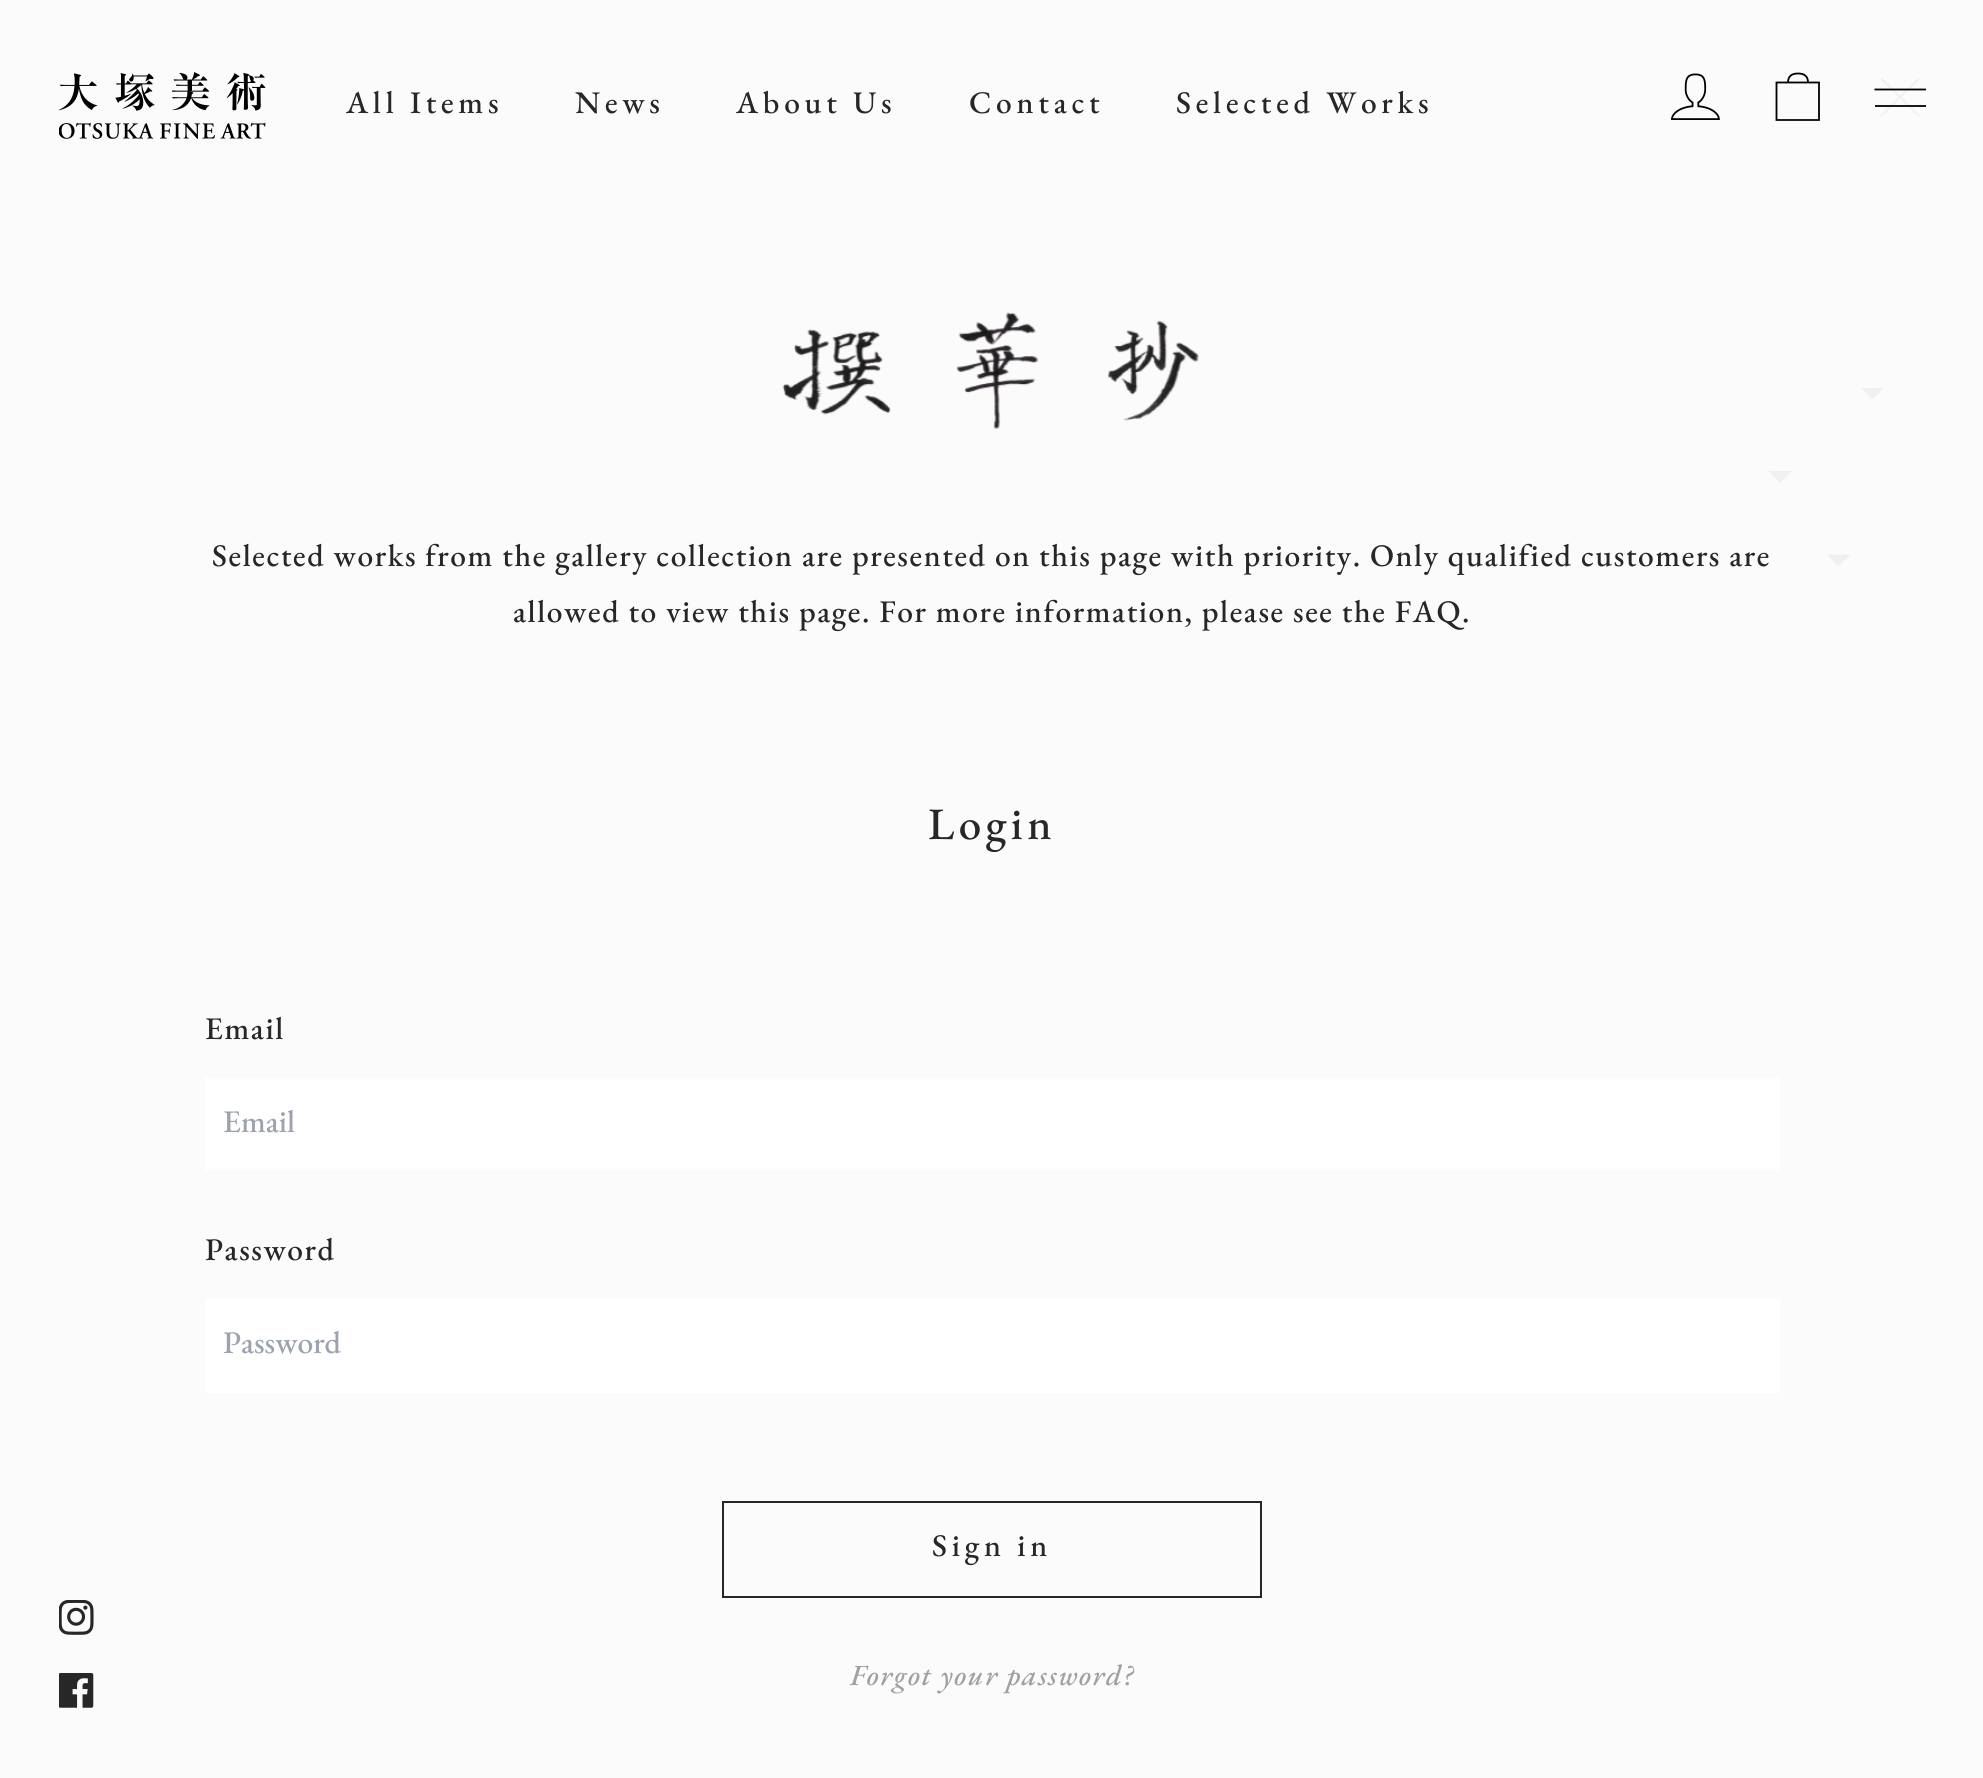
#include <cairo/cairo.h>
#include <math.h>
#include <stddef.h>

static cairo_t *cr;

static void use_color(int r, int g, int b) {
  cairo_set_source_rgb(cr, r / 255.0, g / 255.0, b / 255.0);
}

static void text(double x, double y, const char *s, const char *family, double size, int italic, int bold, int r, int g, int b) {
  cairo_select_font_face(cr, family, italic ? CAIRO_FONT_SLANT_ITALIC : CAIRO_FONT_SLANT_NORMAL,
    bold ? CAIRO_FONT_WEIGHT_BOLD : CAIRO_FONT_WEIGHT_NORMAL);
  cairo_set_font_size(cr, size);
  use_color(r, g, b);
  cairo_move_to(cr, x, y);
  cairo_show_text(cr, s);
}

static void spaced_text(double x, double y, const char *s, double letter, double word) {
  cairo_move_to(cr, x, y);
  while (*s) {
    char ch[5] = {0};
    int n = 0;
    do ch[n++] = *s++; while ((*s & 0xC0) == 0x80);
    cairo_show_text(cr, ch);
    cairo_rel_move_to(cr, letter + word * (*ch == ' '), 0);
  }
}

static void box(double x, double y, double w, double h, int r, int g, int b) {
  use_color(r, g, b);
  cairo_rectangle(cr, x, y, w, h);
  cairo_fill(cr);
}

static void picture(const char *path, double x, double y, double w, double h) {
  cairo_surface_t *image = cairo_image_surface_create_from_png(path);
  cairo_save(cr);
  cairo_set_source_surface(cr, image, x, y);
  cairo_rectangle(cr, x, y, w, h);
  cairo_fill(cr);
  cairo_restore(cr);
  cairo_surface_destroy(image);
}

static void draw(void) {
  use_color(251, 251, 251);
  cairo_paint(cr);
  picture("img_01.png", 59, 72, 207, 67);
  picture("img_02.png", 1671, 73, 49, 47);
  cairo_new_path(cr);
  cairo_move_to(cr, 1788, 82.5);
  cairo_curve_to(cr, 1788, 75.5, 1792.5, 73.5, 1798, 73.5);
  cairo_curve_to(cr, 1803.5, 73.5, 1808, 75.5, 1808, 82.5);
  cairo_move_to(cr, 1776.5, 82.5);
  cairo_line_to(cr, 1819, 82.5);
  cairo_line_to(cr, 1819, 120);
  cairo_line_to(cr, 1776.5, 120);
  cairo_close_path(cr);
  use_color(240, 240, 240);
  cairo_set_line_width(cr, 1.8);
  cairo_stroke(cr);
  cairo_new_path(cr);
  cairo_move_to(cr, 1788, 82.5);
  cairo_curve_to(cr, 1788, 75.5, 1792.5, 73.5, 1798, 73.5);
  cairo_curve_to(cr, 1803.5, 73.5, 1808, 75.5, 1808, 82.5);
  cairo_move_to(cr, 1776.5, 82.5);
  cairo_line_to(cr, 1819, 82.5);
  cairo_line_to(cr, 1819, 120);
  cairo_line_to(cr, 1776.5, 120);
  cairo_close_path(cr);
  use_color(0, 0, 0);
  cairo_stroke(cr);
  cairo_new_path(cr);
  cairo_move_to(cr, 1881.5, 78.5);
  cairo_line_to(cr, 1919.5, 116.5);
  cairo_move_to(cr, 1880.5, 116.5);
  cairo_line_to(cr, 1919, 78.5);
  use_color(240, 240, 240);
  cairo_stroke(cr);
  cairo_save(cr);
  cairo_rectangle(cr, 1874, 72, 52, 52);
  cairo_clip(cr);
  cairo_new_path(cr);
  cairo_move_to(cr, 1874.5, 89.5);
  cairo_line_to(cr, 1926.5, 89.5);
  use_color(0, 0, 0);
  cairo_stroke(cr);
  cairo_restore(cr);
  cairo_set_source_rgba(cr, 0, 0, 0, 0.9);
  cairo_rectangle(cr, 1875, 105, 51, 2);
  cairo_fill(cr);
  use_color(240, 240, 240);
  cairo_new_path(cr);
  cairo_move_to(cr, 1861, 388);
  cairo_line_to(cr, 1884, 388);
  cairo_line_to(cr, 1872.5, 399.5);
  cairo_close_path(cr);
  cairo_fill(cr);
  cairo_new_path(cr);
  cairo_move_to(cr, 1768.5, 471);
  cairo_line_to(cr, 1792, 471);
  cairo_line_to(cr, 1780, 483);
  cairo_close_path(cr);
  cairo_fill(cr);
  cairo_new_path(cr);
  cairo_move_to(cr, 1827, 554.5);
  cairo_line_to(cr, 1850.5, 554.5);
  cairo_line_to(cr, 1838.5, 566);
  cairo_close_path(cr);
  cairo_fill(cr);
  picture("img_03.png", 59, 1600, 35, 35);
  picture("img_04.png", 59, 1673, 35, 35);
  picture("img_05.png", 782, 312, 417, 118);
  box(205, 1078, 1575, 92, 255, 255, 255);
  box(205, 1298, 1575, 95, 255, 255, 255);
  cairo_rectangle(cr, 723, 1502, 538, 95);
  use_color(39, 39, 39);
  cairo_set_line_width(cr, 2);
  cairo_stroke(cr);
  cairo_select_font_face(cr, "EB Garamond Medium", CAIRO_FONT_SLANT_NORMAL, CAIRO_FONT_WEIGHT_NORMAL);
  cairo_set_font_size(cr, 31.5);
  spaced_text(346, 113, "All Items", 4.75, 0);
  spaced_text(575, 113, "News", 4.75, 0);
  spaced_text(736, 113, "About Us", 4.75, 0);
  spaced_text(969, 113, "Contact", 4.75, 0);
  spaced_text(1176, 113, "Selected Works", 4.75, 0);
  spaced_text(212, 566, "Selected works from the gallery collection are presented on this page with priority. Only qualified customers are", 1.57, 0);
  spaced_text(513, 622, "allowed to view this page. For more information, please see the FAQ.", 1.57, 0);
  cairo_set_font_size(cr, 45);
  spaced_text(928, 839, "Login", 4.5, 0);
  cairo_set_font_size(cr, 31.5);
  spaced_text(205, 1039, "Email", 1.57, 0);
  text(223, 1132, "Email", "EB Garamond Medium", 31.5, 0, 0, 156, 163, 175);
  use_color(39, 39, 39);
  spaced_text(205, 1260, "Password", 1.57, 0);
  text(223, 1353, "Password", "EB Garamond Medium", 31.5, 0, 0, 156, 163, 175);
  use_color(39, 39, 39);
  spaced_text(932, 1556, "Sign in", 4.75, 0);
  cairo_select_font_face(cr, "EB Garamond Medium", CAIRO_FONT_SLANT_ITALIC, CAIRO_FONT_WEIGHT_NORMAL);
  cairo_set_font_size(cr, 29.25);
  use_color(160, 160, 160);
  spaced_text(850, 1685, "Forgot your password?", 1.57, 0);
}

int main(void) {
  cairo_surface_t *surface = cairo_image_surface_create(CAIRO_FORMAT_RGB24, 1983, 1778);
  cr = cairo_create(surface);
  cairo_font_options_t *options = cairo_font_options_create();
  cairo_font_options_set_hint_metrics(options, CAIRO_HINT_METRICS_OFF);
  cairo_font_options_set_hint_style(options, CAIRO_HINT_STYLE_NONE);
  cairo_set_font_options(cr, options);
  cairo_set_miter_limit(cr, 4);
  draw();
  cairo_surface_write_to_png(surface, "out.png");
  cairo_font_options_destroy(options);
  cairo_destroy(cr);
  cairo_surface_destroy(surface);
  return 0;
}
